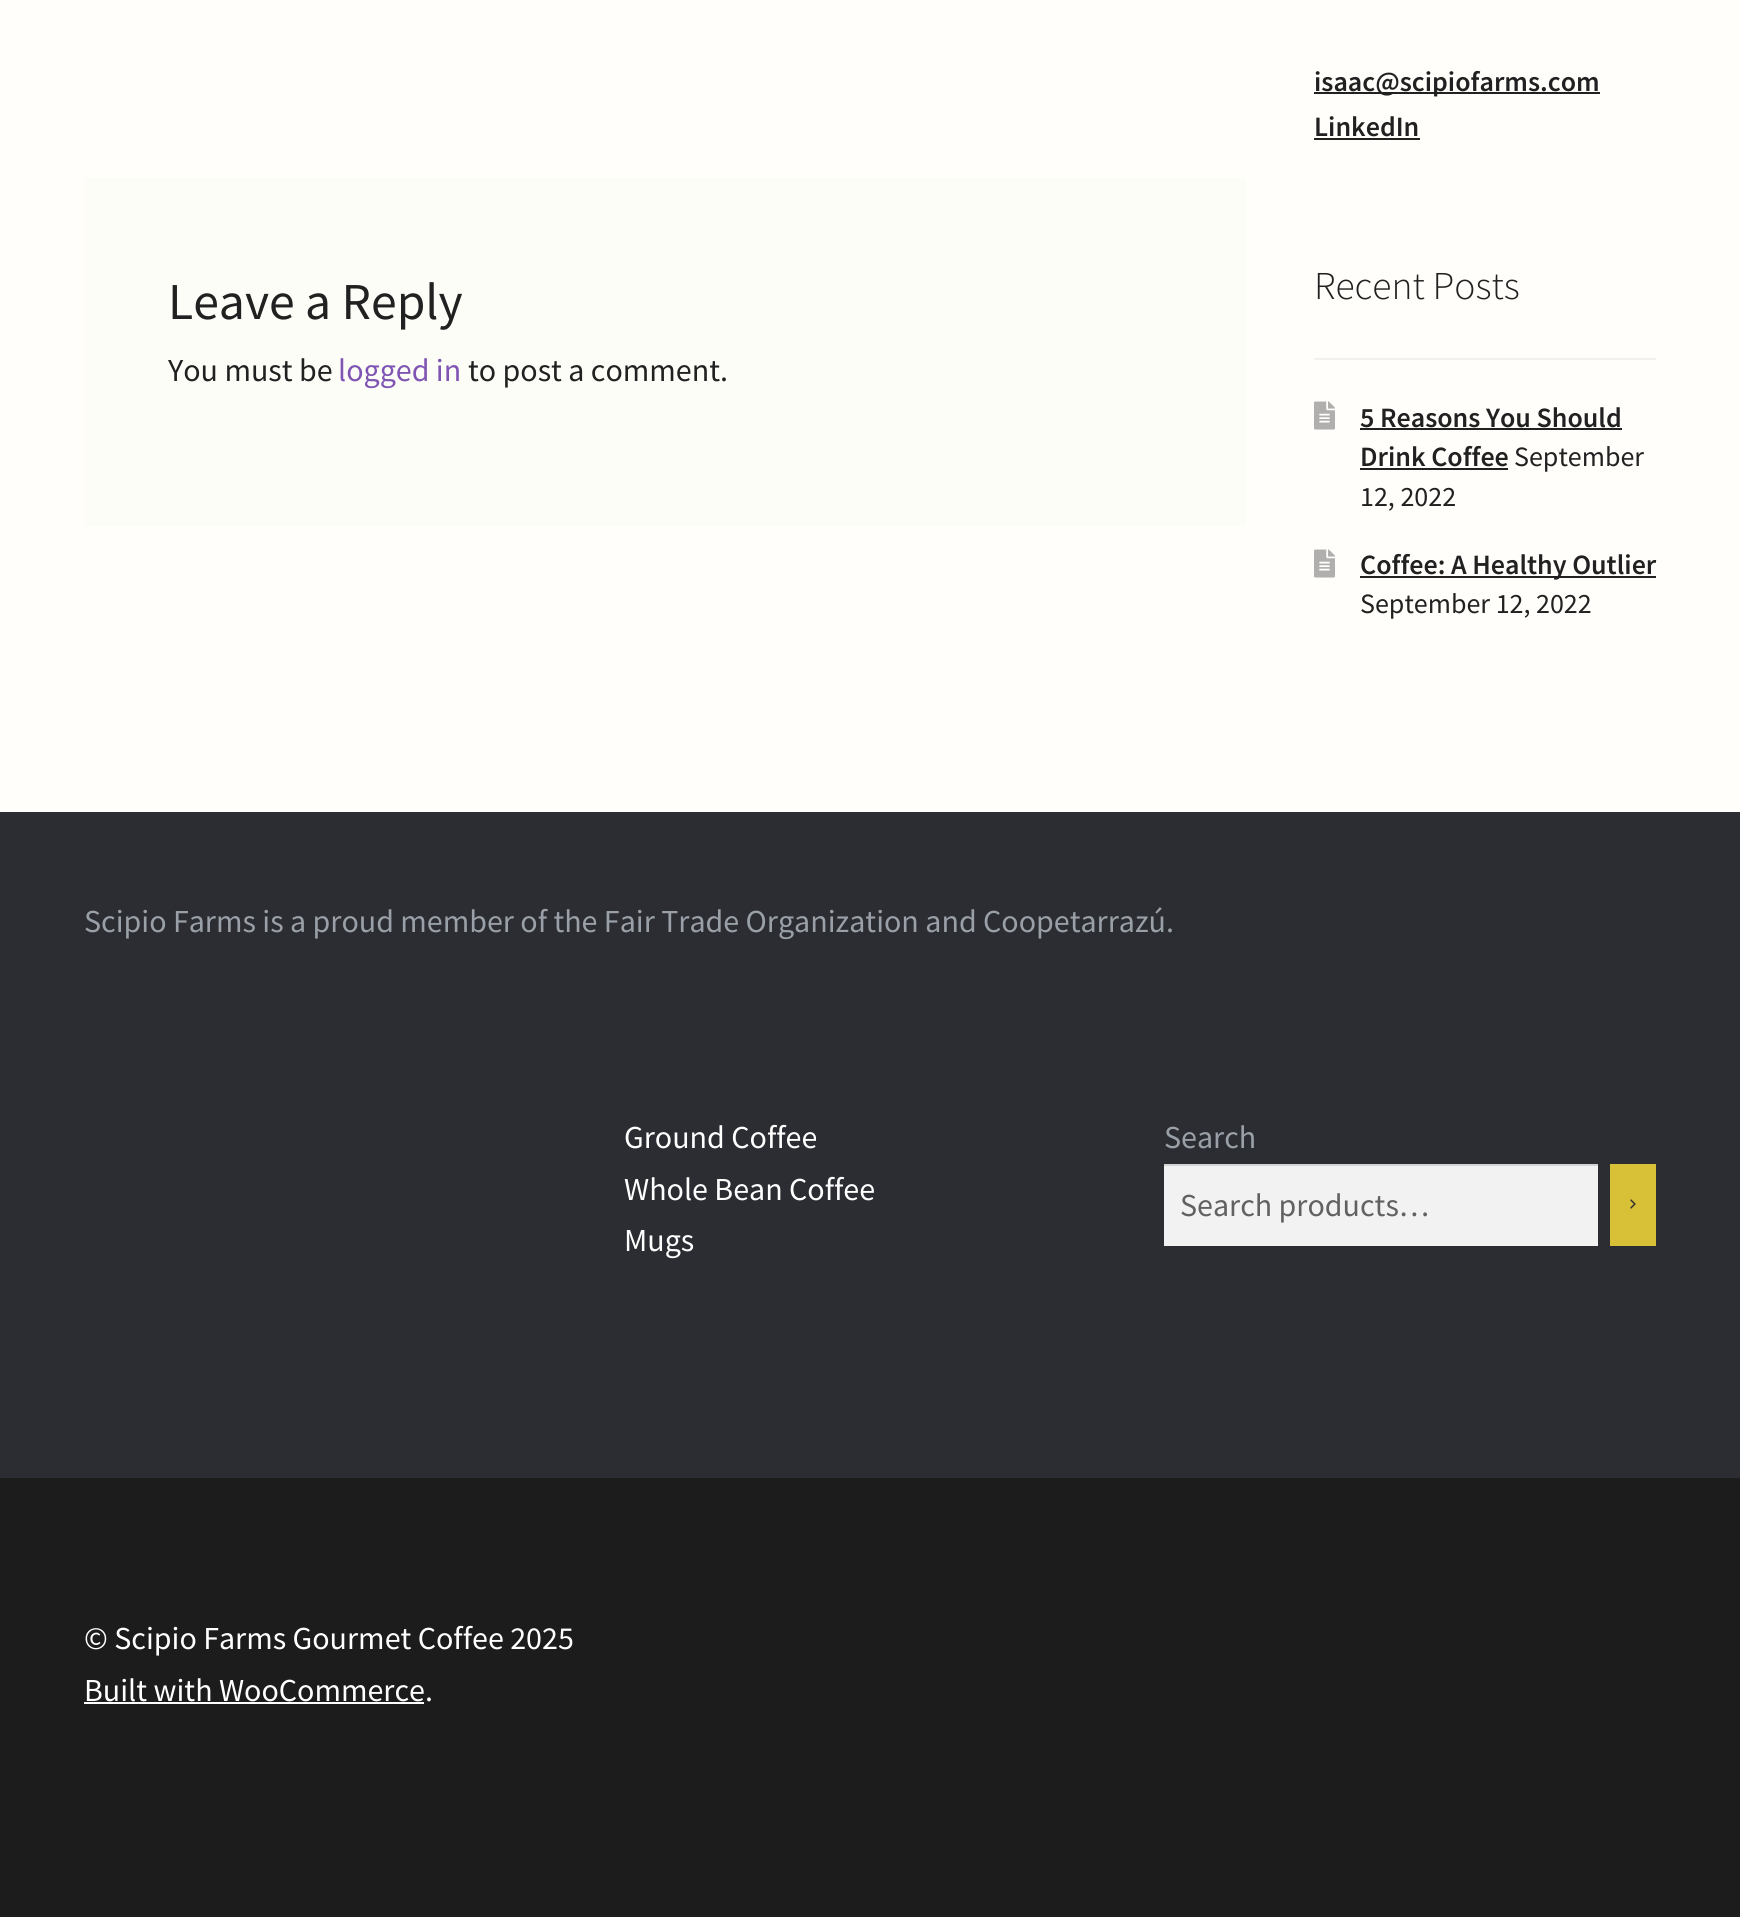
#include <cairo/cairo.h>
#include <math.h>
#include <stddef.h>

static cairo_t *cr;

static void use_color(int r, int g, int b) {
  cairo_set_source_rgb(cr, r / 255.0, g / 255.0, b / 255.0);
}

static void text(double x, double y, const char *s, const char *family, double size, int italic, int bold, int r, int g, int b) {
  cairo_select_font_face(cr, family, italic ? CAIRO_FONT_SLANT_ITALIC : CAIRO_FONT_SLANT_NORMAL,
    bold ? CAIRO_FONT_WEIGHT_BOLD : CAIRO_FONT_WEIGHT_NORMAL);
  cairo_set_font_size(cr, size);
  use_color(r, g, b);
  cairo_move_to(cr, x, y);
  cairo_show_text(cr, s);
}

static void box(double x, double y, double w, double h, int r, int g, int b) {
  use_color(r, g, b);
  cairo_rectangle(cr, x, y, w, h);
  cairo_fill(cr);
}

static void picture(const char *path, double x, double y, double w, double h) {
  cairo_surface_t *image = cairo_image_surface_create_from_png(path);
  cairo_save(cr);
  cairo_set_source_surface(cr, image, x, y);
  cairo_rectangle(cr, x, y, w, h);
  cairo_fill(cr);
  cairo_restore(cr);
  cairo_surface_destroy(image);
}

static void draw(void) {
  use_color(255, 254, 251);
  cairo_paint(cr);
  box(84, 178, 1162, 348, 253, 253, 248);
  box(1314, 92, 286, 2, 33, 33, 33);
  box(1314, 138, 106, 2, 33, 33, 33);
  box(1314, 358, 342, 2, 242, 241, 238);
  picture("img_01.png", 1314, 401, 21, 29);
  box(1360, 428, 262, 2, 33, 33, 33);
  box(1360, 468, 148, 2, 33, 33, 33);
  picture("img_01.png", 1314, 549, 21, 29);
  box(1360, 576, 296, 2, 33, 33, 33);
  box(0, 812, 1740, 666, 44, 45, 51);
  box(1164, 1166, 434, 80, 242, 242, 242);
  box(1164, 1164, 434, 2, 212, 212, 212);
  box(1610, 1164, 46, 82, 216, 193, 55);
  picture("img_02.png", 1630, 1199, 6, 10);
  box(0, 1478, 1740, 439, 28, 28, 28);
  box(84, 1702, 340, 2, 255, 255, 255);
  text(168, 319, "Leave a Reply", "Source Sans Pro", 51.75, 0, 0, 33, 33, 33);
  text(168, 381, "You must be", "Source Sans Pro", 32, 0, 0, 33, 33, 33);
  text(338, 381, "logged in", "Source Sans Pro", 32, 0, 0, 127, 84, 179);
  text(468, 381, "to post a comment.", "Source Sans Pro", 32, 0, 0, 33, 33, 33);
  text(1314, 91, "isaac@scipiofarms.com", "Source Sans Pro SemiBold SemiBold", 28, 0, 0, 33, 33, 33);
  text(1314, 136, "LinkedIn", "Source Sans Pro SemiBold SemiBold", 28, 0, 0, 33, 33, 33);
  text(1314, 299, "Recent Posts", "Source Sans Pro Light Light", 39.5, 0, 0, 33, 33, 33);
  text(1360, 427, "5 Reasons You Should", "Source Sans Pro SemiBold SemiBold", 28, 0, 0, 33, 33, 33);
  text(1360, 466, "Drink Coffee", "Source Sans Pro SemiBold SemiBold", 28, 0, 0, 33, 33, 33);
  text(1514, 466, "September", "Source Sans Pro", 28, 0, 0, 33, 33, 33);
  text(1360, 506, "12, 2022", "Source Sans Pro", 28, 0, 0, 33, 33, 33);
  text(1360, 574, "Coffee: A Healthy Outlier", "Source Sans Pro SemiBold SemiBold", 28, 0, 0, 33, 33, 33);
  text(1360, 613, "September 12, 2022", "Source Sans Pro", 28, 0, 0, 33, 33, 33);
  text(84, 932, "Scipio Farms is a proud member of the Fair Trade Organization and Coopetarrazú.", "Source Sans Pro", 32, 0, 0, 154, 160, 167);
  text(624, 1148, "Ground Coffee", "Source Sans Pro", 32, 0, 0, 255, 255, 255);
  text(624, 1200, "Whole Bean Coffee", "Source Sans Pro", 32, 0, 0, 255, 255, 255);
  text(624, 1251, "Mugs", "Source Sans Pro", 32, 0, 0, 255, 255, 255);
  text(1164, 1148, "Search", "Source Sans Pro", 32, 0, 0, 154, 160, 167);
  text(1180, 1216, "Search products…", "Source Sans Pro", 32, 0, 0, 97, 97, 97);
  text(84, 1649, "© Scipio Farms Gourmet Coffee 2025", "Source Sans Pro", 32, 0, 0, 255, 255, 255);
  text(84, 1701, "Built with WooCommerce.", "Source Sans Pro", 32, 0, 0, 255, 255, 255);
}

int main(void) {
  cairo_surface_t *surface = cairo_image_surface_create(CAIRO_FORMAT_RGB24, 1740, 1917);
  cr = cairo_create(surface);
  cairo_font_options_t *options = cairo_font_options_create();
  cairo_font_options_set_hint_metrics(options, CAIRO_HINT_METRICS_OFF);
  cairo_font_options_set_hint_style(options, CAIRO_HINT_STYLE_NONE);
  cairo_set_font_options(cr, options);
  cairo_set_miter_limit(cr, 4);
  draw();
  cairo_surface_write_to_png(surface, "out.png");
  cairo_font_options_destroy(options);
  cairo_destroy(cr);
  cairo_surface_destroy(surface);
  return 0;
}
